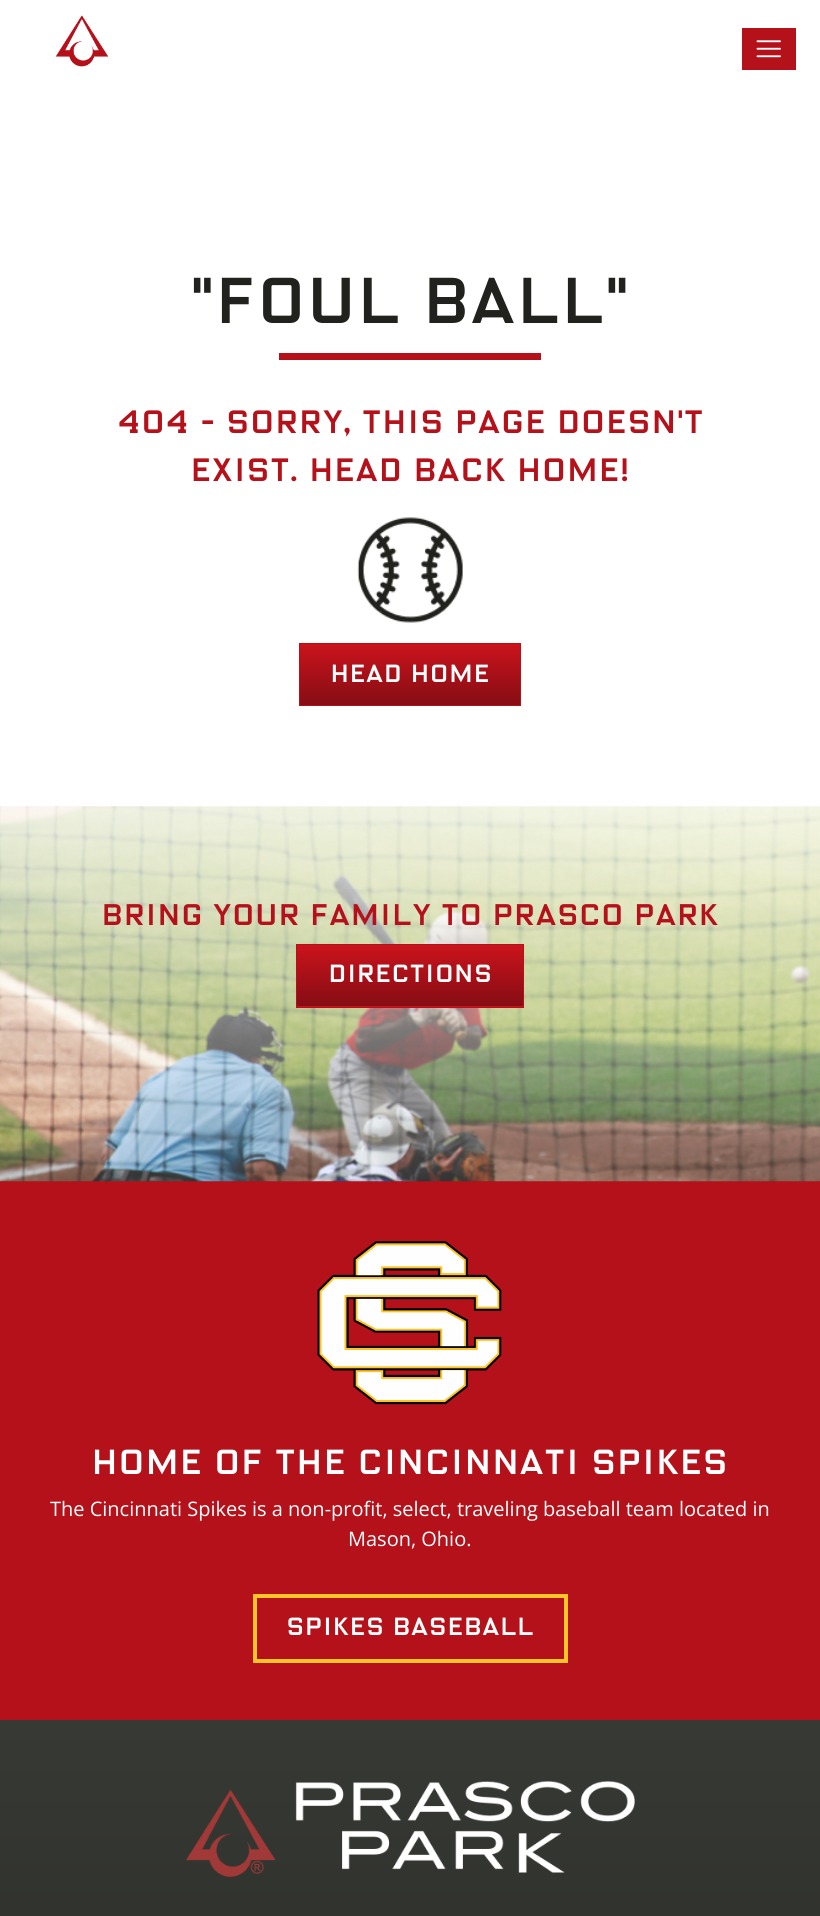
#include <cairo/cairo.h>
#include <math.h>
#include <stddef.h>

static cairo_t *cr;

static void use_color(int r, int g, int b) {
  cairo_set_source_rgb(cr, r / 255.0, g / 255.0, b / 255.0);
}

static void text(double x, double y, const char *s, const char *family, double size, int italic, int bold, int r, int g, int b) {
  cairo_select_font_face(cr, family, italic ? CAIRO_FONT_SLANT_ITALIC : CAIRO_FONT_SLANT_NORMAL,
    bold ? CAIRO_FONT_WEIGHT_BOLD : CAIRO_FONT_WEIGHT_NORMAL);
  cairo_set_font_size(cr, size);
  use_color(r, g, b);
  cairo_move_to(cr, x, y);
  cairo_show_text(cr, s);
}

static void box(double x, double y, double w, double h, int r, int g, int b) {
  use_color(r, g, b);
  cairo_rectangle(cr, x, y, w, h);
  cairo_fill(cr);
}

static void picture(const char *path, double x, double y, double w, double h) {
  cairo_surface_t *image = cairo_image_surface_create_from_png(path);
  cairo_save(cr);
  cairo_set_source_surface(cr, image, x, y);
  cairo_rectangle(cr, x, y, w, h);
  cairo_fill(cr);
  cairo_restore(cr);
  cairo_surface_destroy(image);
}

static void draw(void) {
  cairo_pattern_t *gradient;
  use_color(255, 255, 255);
  cairo_paint(cr);
  picture("img_01.png", 55, 15, 54, 52);
  box(742, 28, 54, 42, 180, 17, 26);
  picture("img_02.png", 756, 40, 25, 18);
  box(279, 353, 262, 7, 180, 17, 26);
  picture("img_03.png", 357, 517, 106, 106);
  gradient = cairo_pattern_create_linear(410, 644, 410, 705);
  cairo_pattern_add_color_stop_rgba(gradient, 0, 0.796, 0.075, 0.114, 1);
  cairo_pattern_add_color_stop_rgba(gradient, 1, 0.522, 0.051, 0.075, 1);
  cairo_set_source(cr, gradient);
  cairo_pattern_destroy(gradient);
  cairo_rectangle(cr, 300, 644, 220, 61);
  cairo_fill(cr);
  cairo_rectangle(cr, 299.5, 643.5, 221, 62);
  use_color(180, 17, 26);
  cairo_set_line_width(cr, 1);
  cairo_stroke(cr);
  box(0, 1181, 820, 539, 180, 17, 26);
  picture("img_04.png", 0, 806, 820, 376);
  gradient = cairo_pattern_create_linear(410, 945, 410, 1006);
  cairo_pattern_add_color_stop_rgba(gradient, 0, 0.796, 0.075, 0.114, 1);
  cairo_pattern_add_color_stop_rgba(gradient, 1, 0.522, 0.051, 0.075, 1);
  cairo_set_source(cr, gradient);
  cairo_pattern_destroy(gradient);
  cairo_rectangle(cr, 297, 945, 226, 61);
  cairo_fill(cr);
  gradient = cairo_pattern_create_linear(410, 1006, 410, 1068);
  cairo_pattern_add_color_stop_rgba(gradient, 0, 0.796, 0.075, 0.114, 1);
  cairo_pattern_add_color_stop_rgba(gradient, 1, 0.522, 0.051, 0.075, 1);
  cairo_set_source(cr, gradient);
  cairo_pattern_destroy(gradient);
  cairo_rectangle(cr, 296, 1006, 228, 1);
  cairo_fill(cr);
  cairo_rectangle(cr, 296.5, 944.5, 227, 63);
  use_color(180, 17, 26);
  cairo_stroke(cr);
  picture("img_05.png", 317, 1241, 185, 164);
  cairo_rectangle(cr, 255, 1596, 311, 65);
  use_color(255, 196, 37);
  cairo_set_line_width(cr, 4);
  cairo_stroke(cr);
  gradient = cairo_pattern_create_linear(410, 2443, 410, 1720);
  cairo_pattern_add_color_stop_rgba(gradient, 0, 0.129, 0.133, 0.118, 1);
  cairo_pattern_add_color_stop_rgba(gradient, 1, 0.216, 0.224, 0.204, 1);
  cairo_set_source(cr, gradient);
  cairo_pattern_destroy(gradient);
  cairo_rectangle(cr, 0, 1720, 820, 196);
  cairo_fill(cr);
  picture("img_06.png", 186, 1780, 449, 97);
  text(190, 323, "\"FOUL BALL\"", "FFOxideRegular", 65, 0, 0, 33, 34, 30);
  text(117, 433, "404 - SORRY, THIS PAGE DOESN'T", "FFOxideRegular", 32.5, 0, 0, 180, 17, 26);
  text(190, 481, "EXIST. HEAD BACK HOME!", "FFOxideRegular", 32.5, 0, 0, 180, 17, 26);
  text(330, 682, "HEAD HOME", "FFOxideRegular", 25, 0, 0, 255, 255, 255);
  text(101, 925, "Bring your family to prasco park", "FFOxideRegular", 30, 0, 0, 180, 17, 26);
  text(328, 982, "Directions", "FFOxideRegular", 25, 0, 0, 255, 255, 255);
  text(91, 1474, "Home of the Cincinnati Spikes", "FFOxideRegular", 35, 0, 0, 255, 255, 255);
  text(50, 1516, "The Cincinnati Spikes is a non-profit, select, traveling baseball team located in", "Open Sans", 20, 0, 0, 255, 255, 255);
  text(348, 1546, "Mason, Ohio.", "Open Sans", 20, 0, 0, 255, 255, 255);
  text(286, 1635, "Spikes Baseball", "FFOxideRegular", 25, 0, 0, 255, 255, 255);
}

int main(void) {
  cairo_surface_t *surface = cairo_image_surface_create(CAIRO_FORMAT_RGB24, 820, 1916);
  cr = cairo_create(surface);
  cairo_font_options_t *options = cairo_font_options_create();
  cairo_font_options_set_hint_metrics(options, CAIRO_HINT_METRICS_OFF);
  cairo_font_options_set_hint_style(options, CAIRO_HINT_STYLE_NONE);
  cairo_set_font_options(cr, options);
  cairo_set_miter_limit(cr, 4);
  draw();
  cairo_surface_write_to_png(surface, "out.png");
  cairo_font_options_destroy(options);
  cairo_destroy(cr);
  cairo_surface_destroy(surface);
  return 0;
}
